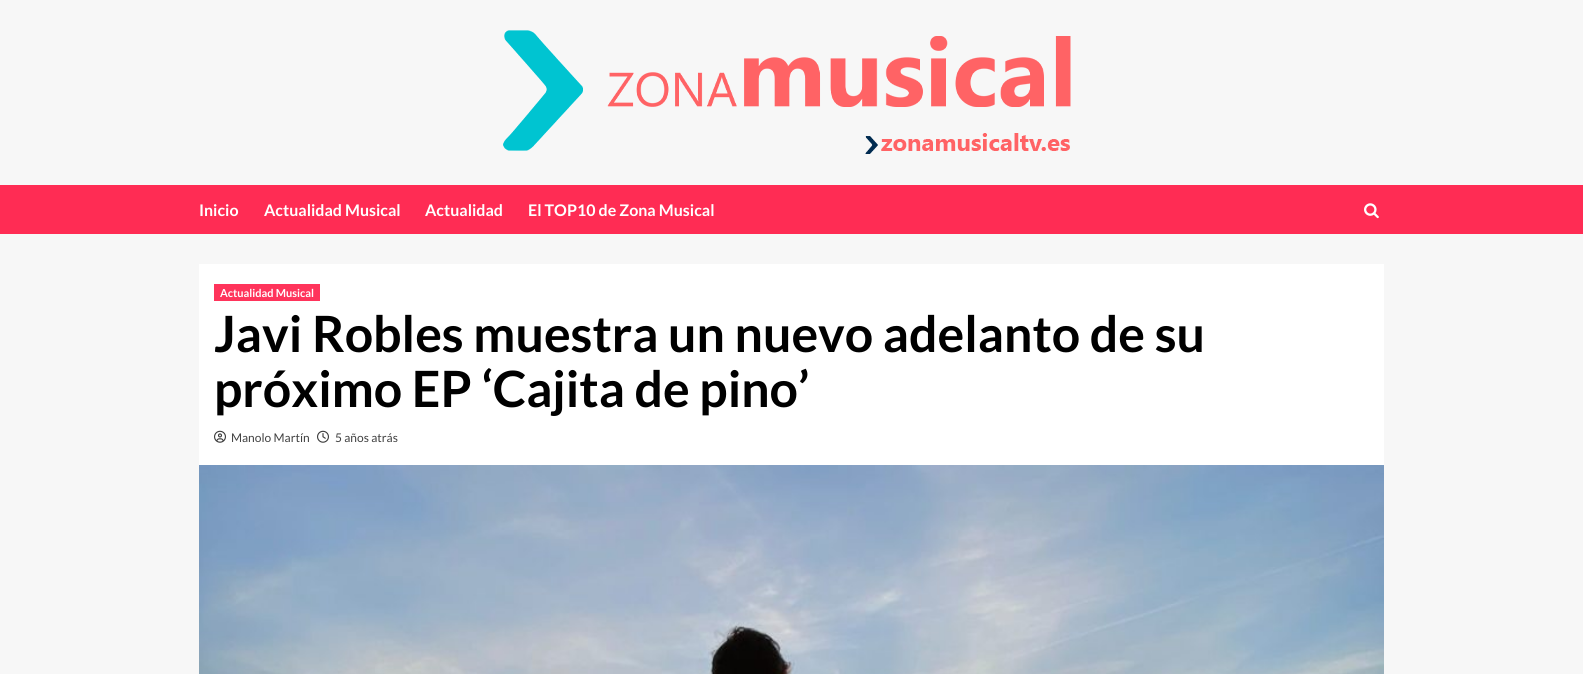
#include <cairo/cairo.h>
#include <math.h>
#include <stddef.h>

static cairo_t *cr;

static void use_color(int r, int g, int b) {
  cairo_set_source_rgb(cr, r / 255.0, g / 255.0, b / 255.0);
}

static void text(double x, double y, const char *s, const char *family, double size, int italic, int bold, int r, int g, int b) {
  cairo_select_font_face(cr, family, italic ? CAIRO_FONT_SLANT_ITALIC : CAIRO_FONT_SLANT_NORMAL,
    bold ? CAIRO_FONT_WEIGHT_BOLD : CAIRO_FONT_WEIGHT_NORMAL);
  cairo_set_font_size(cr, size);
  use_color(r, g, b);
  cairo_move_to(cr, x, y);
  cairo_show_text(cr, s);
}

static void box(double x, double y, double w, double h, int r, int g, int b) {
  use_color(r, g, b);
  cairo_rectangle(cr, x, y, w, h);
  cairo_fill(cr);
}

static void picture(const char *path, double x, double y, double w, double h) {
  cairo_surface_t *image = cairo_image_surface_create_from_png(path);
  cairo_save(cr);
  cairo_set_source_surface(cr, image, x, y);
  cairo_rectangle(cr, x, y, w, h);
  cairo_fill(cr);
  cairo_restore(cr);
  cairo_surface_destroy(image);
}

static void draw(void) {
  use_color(247, 247, 247);
  cairo_paint(cr);
  picture("img_01.png", 503, 30, 568, 124);
  box(0, 185, 1583, 49, 255, 44, 84);
  picture("img_02.png", 1364, 203, 15, 16);
  box(199, 264, 1185, 201, 255, 255, 255);
  box(214, 284, 106, 17, 255, 52, 91);
  picture("img_03.png", 214, 430, 12, 13);
  picture("img_04.png", 317, 430, 12, 13);
  picture("img_05.png", 199, 465, 1185, 209);
  text(199, 216, "Inicio", "Lato", 16, 0, 1, 255, 255, 255);
  text(264, 216, "Actualidad Musical", "Lato", 16, 0, 1, 255, 255, 255);
  text(425, 216, "Actualidad", "Lato", 16, 0, 1, 255, 255, 255);
  text(528, 216, "El TOP10 de Zona Musical", "Lato", 16, 0, 1, 255, 255, 255);
  text(220, 297, "Actualidad Musical", "Lato", 11, 0, 1, 255, 255, 255);
  text(214, 352, "Javi Robles muestra un nuevo adelanto de su", "Lato", 50, 0, 1, 0, 0, 0);
  text(214, 407, "próximo EP ‘Cajita de pino’", "Lato", 50, 0, 1, 0, 0, 0);
  text(231, 442, "Manolo Martín", "Lato", 12, 0, 0, 64, 64, 64);
  text(335, 442, "5 años atrás", "Lato", 12, 0, 0, 64, 64, 64);
}

int main(void) {
  cairo_surface_t *surface = cairo_image_surface_create(CAIRO_FORMAT_RGB24, 1583, 674);
  cr = cairo_create(surface);
  cairo_font_options_t *options = cairo_font_options_create();
  cairo_font_options_set_hint_metrics(options, CAIRO_HINT_METRICS_OFF);
  cairo_font_options_set_hint_style(options, CAIRO_HINT_STYLE_NONE);
  cairo_set_font_options(cr, options);
  cairo_set_miter_limit(cr, 4);
  draw();
  cairo_surface_write_to_png(surface, "out.png");
  cairo_font_options_destroy(options);
  cairo_destroy(cr);
  cairo_surface_destroy(surface);
  return 0;
}
